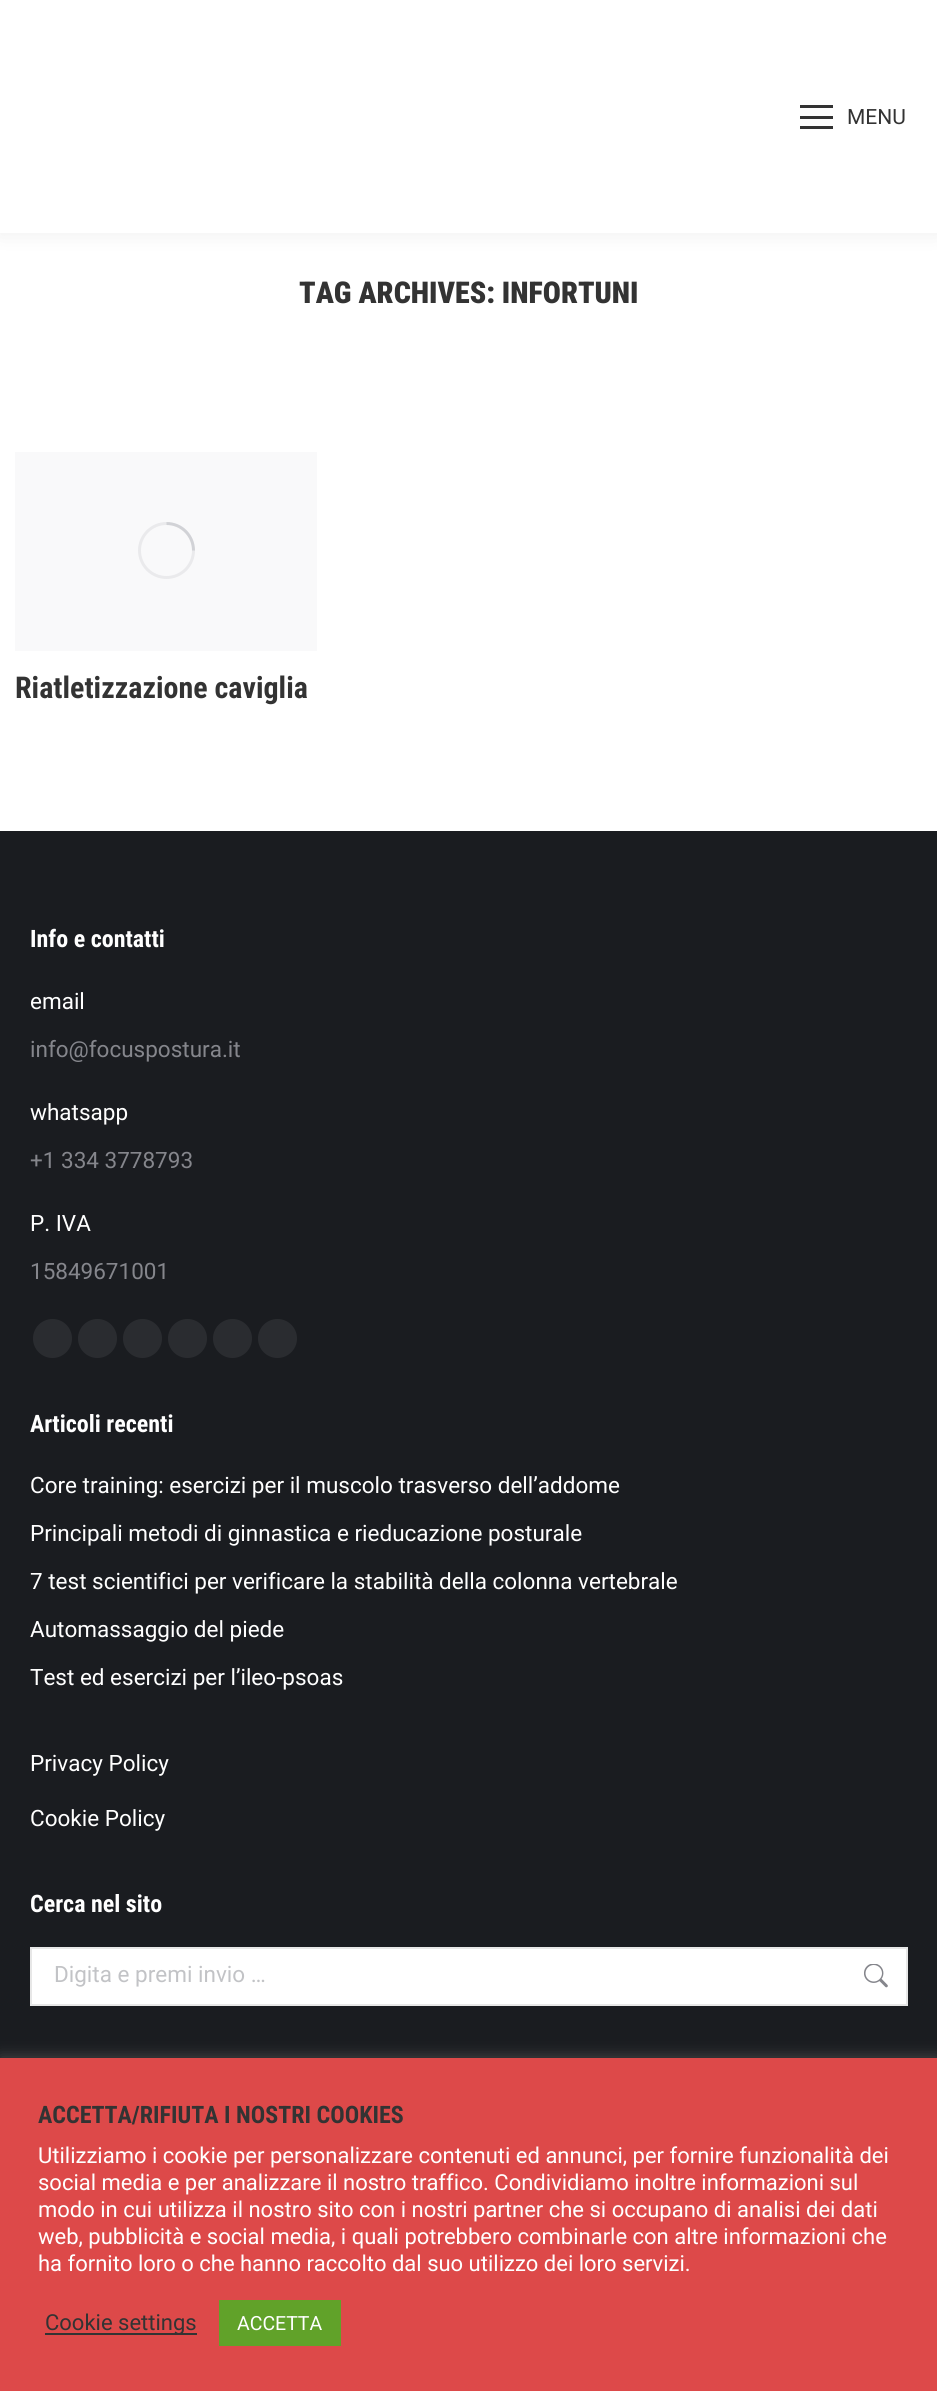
#include <cairo/cairo.h>
#include <math.h>
#include <stddef.h>

static cairo_t *cr;

static void use_color(int r, int g, int b) {
  cairo_set_source_rgb(cr, r / 255.0, g / 255.0, b / 255.0);
}

static void text(double x, double y, const char *s, const char *family, double size, int italic, int bold, int r, int g, int b) {
  cairo_select_font_face(cr, family, italic ? CAIRO_FONT_SLANT_ITALIC : CAIRO_FONT_SLANT_NORMAL,
    bold ? CAIRO_FONT_WEIGHT_BOLD : CAIRO_FONT_WEIGHT_NORMAL);
  cairo_set_font_size(cr, size);
  use_color(r, g, b);
  cairo_move_to(cr, x, y);
  cairo_show_text(cr, s);
}

static void box(double x, double y, double w, double h, int r, int g, int b) {
  use_color(r, g, b);
  cairo_rectangle(cr, x, y, w, h);
  cairo_fill(cr);
}

static void round_rect(double x, double y, double w, double h, double r) {
  cairo_new_sub_path(cr);
  cairo_arc(cr, x + w - r, y + h - r, r, 0, M_PI / 2);
  cairo_arc(cr, x + r, y + h - r, r, M_PI / 2, M_PI);
  cairo_arc(cr, x + r, y + r, r, M_PI, 1.5 * M_PI);
  cairo_arc(cr, x + w - r, y + r, r, 1.5 * M_PI, 2 * M_PI);
  cairo_close_path(cr);
}

static void shadow(double x, double y, double w, double h, double r, double blur, double alpha) {
  cairo_push_group_with_content(cr, CAIRO_CONTENT_ALPHA);
  cairo_set_operator(cr, CAIRO_OPERATOR_SOURCE);
  for (int i = 15; i >= -15 && fmin(w, h) + blur * i / 3 > 0; i -= 2) {
    double e = blur * i / 6;
    cairo_set_source_rgba(cr, 0, 0, 0, alpha * erfc((i - 1) / 8.5) / 2);
    round_rect(x - e, y - e, w + 2 * e, h + 2 * e, fmax(0, fmin(r + e + blur * .6, fmin(w, h) / 2 + e)));
    cairo_fill(cr);
  }
  cairo_pattern_t *soft = cairo_pop_group(cr);
  cairo_mask(cr, soft);
  cairo_pattern_destroy(soft);
}

static void picture(const char *path, double x, double y, double w, double h) {
  cairo_surface_t *image = cairo_image_surface_create_from_png(path);
  cairo_save(cr);
  cairo_set_source_surface(cr, image, x, y);
  cairo_rectangle(cr, x, y, w, h);
  cairo_fill(cr);
  cairo_restore(cr);
  cairo_surface_destroy(image);
}

static void draw(void) {
  use_color(255, 255, 255);
  cairo_paint(cr);
  use_color(0, 0, 0);
  shadow(-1, -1, 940, 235, 0, 11, 0.07);
  box(0, 0, 937, 233, 255, 255, 255);
  box(800, 105, 33, 3, 51, 51, 51);
  box(800, 116, 33, 3, 51, 51, 51);
  box(800, 126, 33, 3, 51, 51, 51);
  box(15, 452, 302, 199, 249, 249, 250);
  cairo_arc(cr, 166.5, 550.5, 27, 0, 2 * M_PI);
  use_color(234, 234, 236);
  cairo_set_line_width(cr, 3);
  cairo_stroke(cr);
  cairo_new_path(cr);
  cairo_move_to(cr, 193.5, 550.5);
  cairo_curve_to(cr, 193.5, 535.5, 181.5, 523.5, 166.5, 523.5);
  cairo_set_source_rgba(cr, 0.545, 0.553, 0.58, 0.25);
  cairo_stroke(cr);
  box(0, 831, 937, 1227, 26, 28, 32);
  use_color(42, 44, 48);
  cairo_arc(cr, 52.5, 1338.5, 19.5, 0, 2 * M_PI);
  cairo_fill(cr);
  cairo_arc(cr, 97.5, 1338.5, 19.5, 0, 2 * M_PI);
  cairo_fill(cr);
  cairo_arc(cr, 142.5, 1338.5, 19.5, 0, 2 * M_PI);
  cairo_fill(cr);
  cairo_arc(cr, 187.5, 1338.5, 19.5, 0, 2 * M_PI);
  cairo_fill(cr);
  cairo_arc(cr, 232.5, 1338.5, 19.5, 0, 2 * M_PI);
  cairo_fill(cr);
  cairo_arc(cr, 277.5, 1338.5, 19.5, 0, 2 * M_PI);
  cairo_fill(cr);
  use_color(255, 255, 255);
  cairo_rectangle(cr, 31, 1948, 876, 57);
  cairo_fill_preserve(cr);
  use_color(231, 231, 231);
  cairo_set_line_width(cr, 2);
  cairo_stroke(cr);
  picture("img_01.png", 864, 1964, 24, 24);
  use_color(172, 171, 171);
  shadow(0, 2057, 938, 333, 0, 7.5, 0.3);
  box(0, 2058, 937, 333, 221, 73, 73);
  box(45, 2333, 152, 2, 51, 51, 51);
  box(219, 2300, 122, 46, 97, 162, 41);
  text(847, 124, "MENU", "Roboto", 21, 0, 0, 51, 51, 51);
  text(299, 303, "TAG ARCHIVES: INFORTUNI", "Roboto Condensed Black", 30, 0, 0, 51, 51, 51);
  text(15, 698, "Riatletizzazione caviglia", "Roboto Condensed", 30, 0, 1, 51, 51, 51);
  text(30, 947, "Info e contatti", "Roboto Condensed", 24, 0, 1, 255, 255, 255);
  text(30, 1009, "email", "Roboto", 22.5, 0, 0, 255, 255, 255);
  text(30, 1057, "info@focuspostura.it", "Roboto", 22.5, 0, 0, 133, 134, 140);
  text(30, 1120, "whatsapp", "Roboto", 22.5, 0, 0, 255, 255, 255);
  text(30, 1168, "+1 334 3778793", "Roboto", 22.5, 0, 0, 133, 134, 140);
  text(30, 1231, "P. IVA", "Roboto", 22.5, 0, 0, 255, 255, 255);
  text(30, 1279, "15849671001", "Roboto", 22.5, 0, 0, 133, 134, 140);
  text(30, 1432, "Articoli recenti", "Roboto Condensed", 24, 0, 1, 255, 255, 255);
  text(30, 1493, "Core training: esercizi per il muscolo trasverso dell’addome", "Roboto", 22.5, 0, 0, 255, 255, 255);
  text(30, 1541, "Principali metodi di ginnastica e rieducazione posturale", "Roboto", 22.5, 0, 0, 255, 255, 255);
  text(30, 1589, "7 test scientifici per verificare la stabilità della colonna vertebrale", "Roboto", 22.5, 0, 0, 255, 255, 255);
  text(30, 1637, "Automassaggio del piede", "Roboto", 22.5, 0, 0, 255, 255, 255);
  text(30, 1685, "Test ed esercizi per l’ileo-psoas", "Roboto", 22.5, 0, 0, 255, 255, 255);
  text(30, 1771, "Privacy Policy", "Roboto", 22.5, 0, 0, 255, 255, 255);
  text(30, 1826, "Cookie Policy", "Roboto", 22.5, 0, 0, 255, 255, 255);
  text(30, 1912, "Cerca nel sito", "Roboto Condensed", 24, 0, 1, 255, 255, 255);
  text(54, 1982, "Digita e premi invio …", "Roboto", 22.5, 0, 0, 194, 195, 198);
  text(38, 2123, "ACCETTA/RIFIUTA I NOSTRI COOKIES", "Roboto Condensed", 24, 0, 1, 51, 51, 51);
  text(38, 2163, "Utilizziamo i cookie per personalizzare contenuti ed annunci, per fornire funzionalità dei", "Roboto", 22, 0, 0, 255, 255, 255);
  text(38, 2190, "social media e per analizzare il nostro traffico. Condividiamo inoltre informazioni sul", "Roboto", 22, 0, 0, 255, 255, 255);
  text(38, 2217, "modo in cui utilizza il nostro sito con i nostri partner che si occupano di analisi dei dati", "Roboto", 22, 0, 0, 255, 255, 255);
  text(38, 2244, "web, pubblicità e social media, i quali potrebbero combinarle con altre informazioni che", "Roboto", 22, 0, 0, 255, 255, 255);
  text(38, 2271, "ha fornito loro o che hanno raccolto dal suo utilizzo dei loro servizi.", "Roboto", 22, 0, 0, 255, 255, 255);
  text(45, 2330, "Cookie settings", "Roboto", 22, 0, 0, 51, 51, 51);
  text(237, 2330, "ACCETTA", "Roboto", 19.5, 0, 0, 255, 255, 255);
}

int main(void) {
  cairo_surface_t *surface = cairo_image_surface_create(CAIRO_FORMAT_RGB24, 937, 2391);
  cr = cairo_create(surface);
  cairo_font_options_t *options = cairo_font_options_create();
  cairo_font_options_set_hint_metrics(options, CAIRO_HINT_METRICS_OFF);
  cairo_font_options_set_hint_style(options, CAIRO_HINT_STYLE_NONE);
  cairo_set_font_options(cr, options);
  cairo_set_miter_limit(cr, 4);
  draw();
  cairo_surface_write_to_png(surface, "out.png");
  cairo_font_options_destroy(options);
  cairo_destroy(cr);
  cairo_surface_destroy(surface);
  return 0;
}
